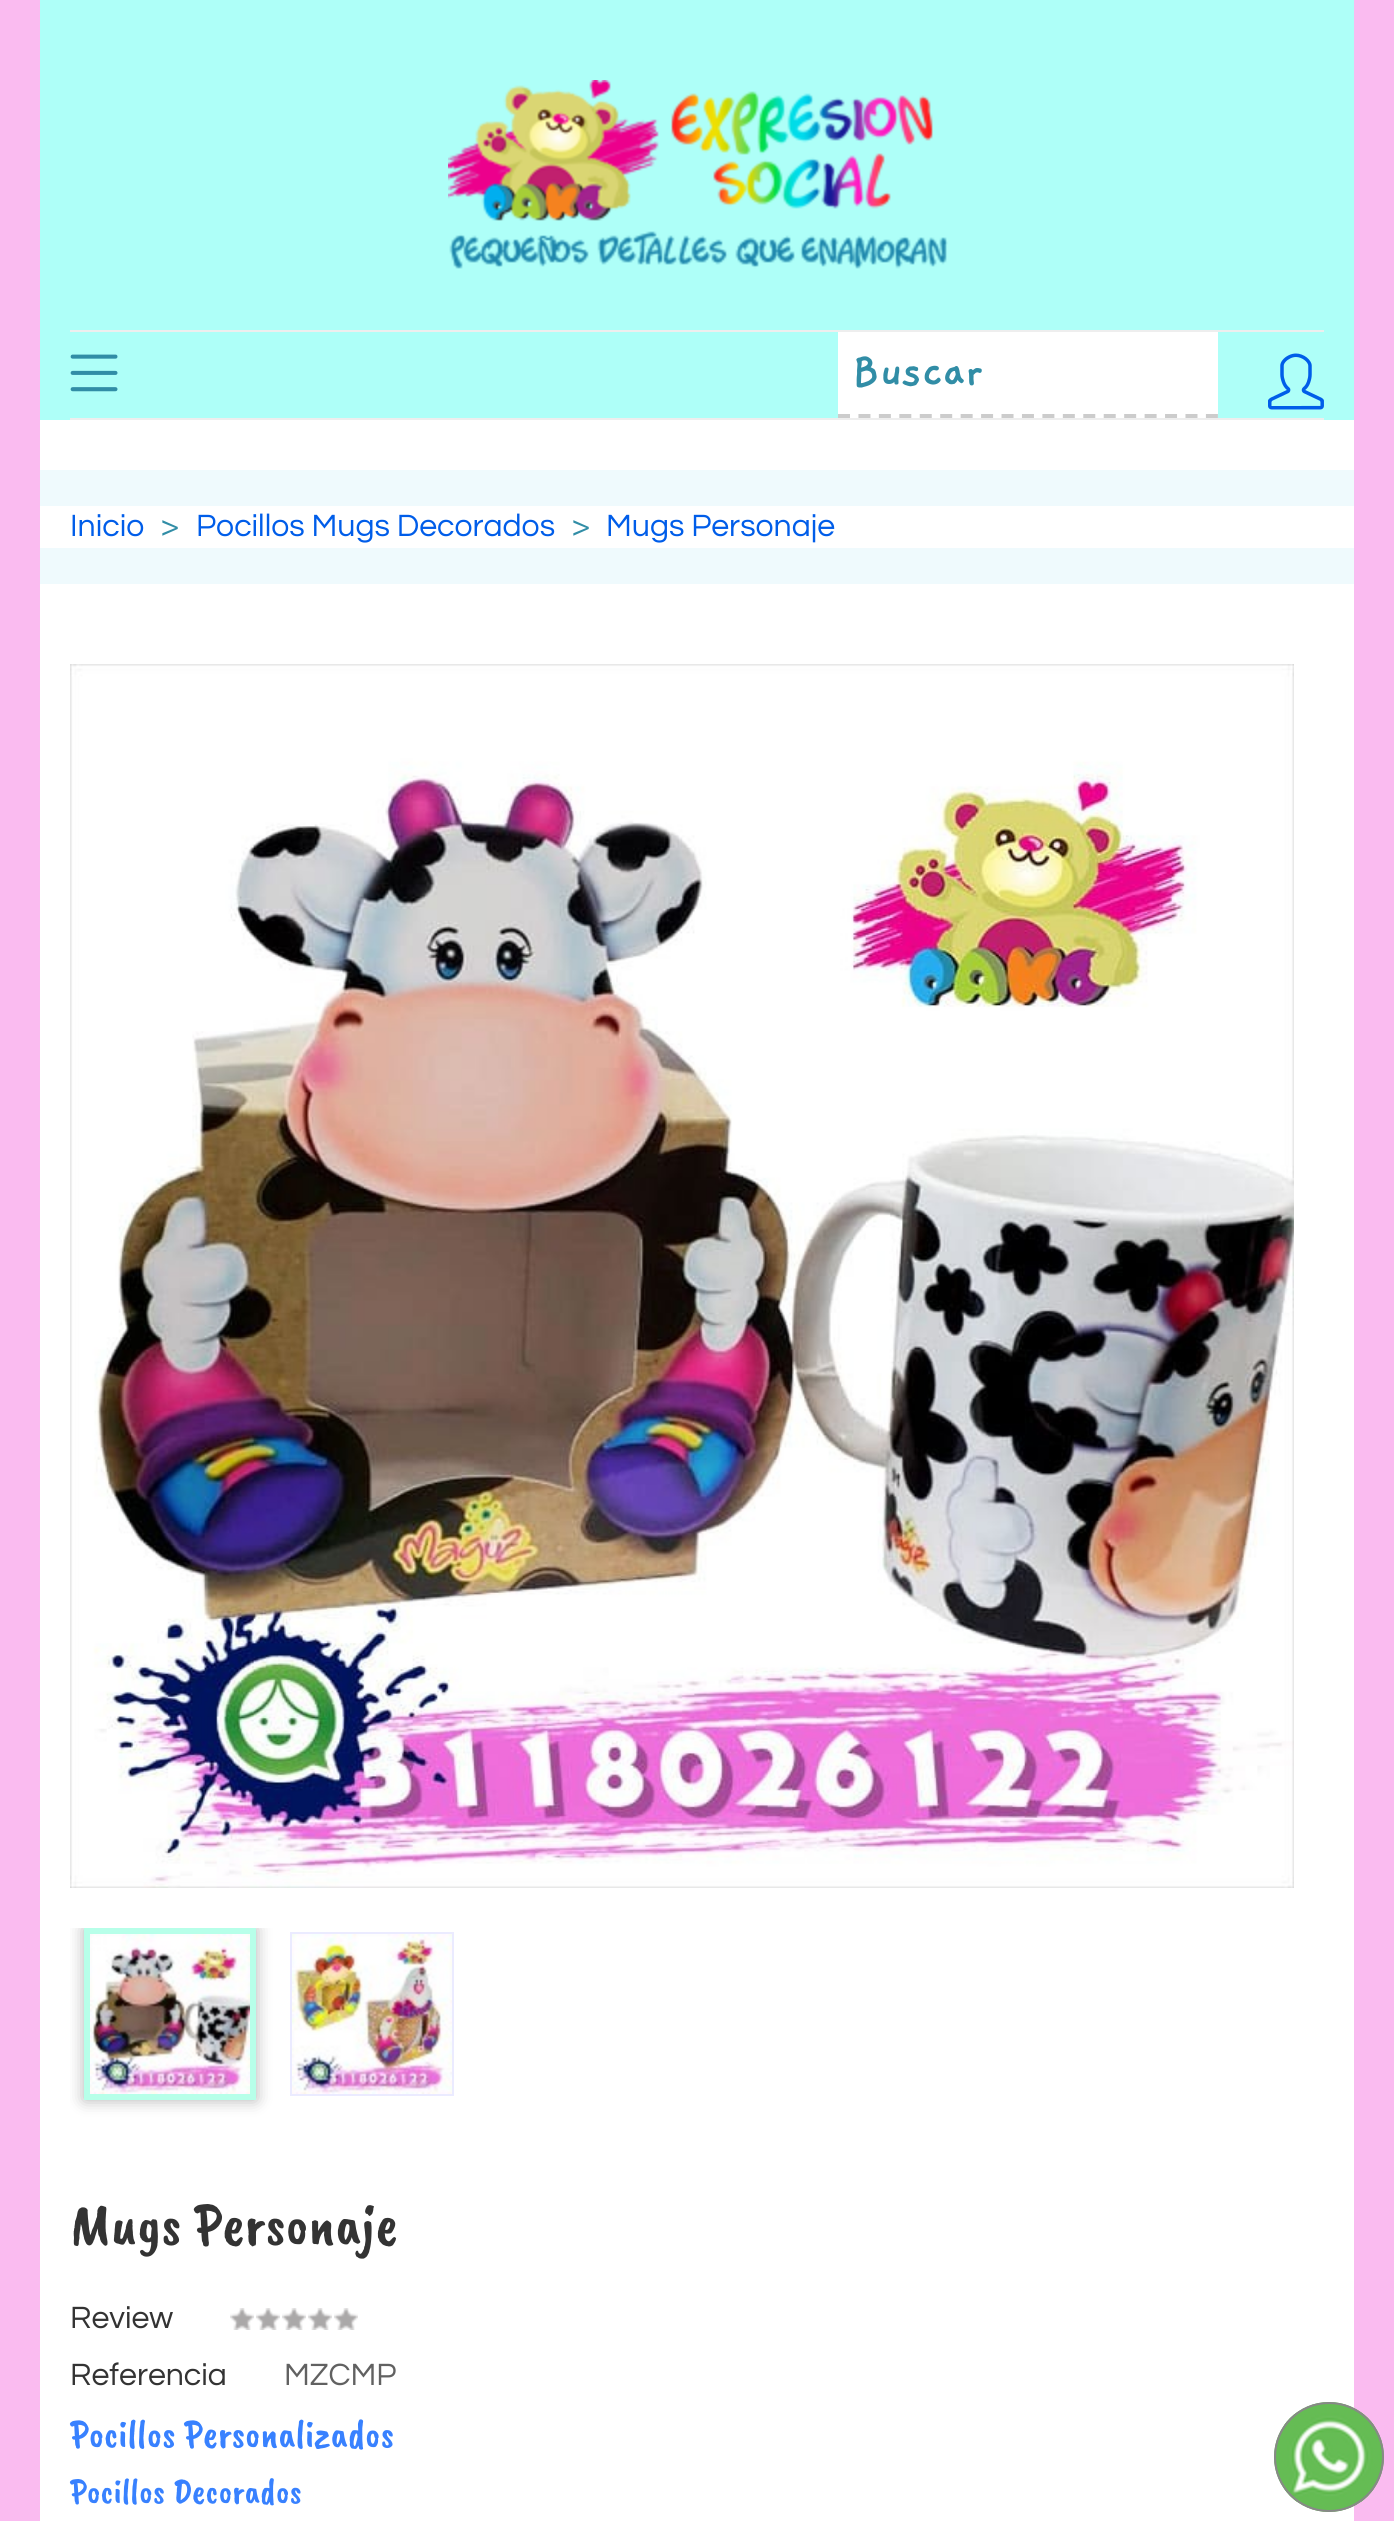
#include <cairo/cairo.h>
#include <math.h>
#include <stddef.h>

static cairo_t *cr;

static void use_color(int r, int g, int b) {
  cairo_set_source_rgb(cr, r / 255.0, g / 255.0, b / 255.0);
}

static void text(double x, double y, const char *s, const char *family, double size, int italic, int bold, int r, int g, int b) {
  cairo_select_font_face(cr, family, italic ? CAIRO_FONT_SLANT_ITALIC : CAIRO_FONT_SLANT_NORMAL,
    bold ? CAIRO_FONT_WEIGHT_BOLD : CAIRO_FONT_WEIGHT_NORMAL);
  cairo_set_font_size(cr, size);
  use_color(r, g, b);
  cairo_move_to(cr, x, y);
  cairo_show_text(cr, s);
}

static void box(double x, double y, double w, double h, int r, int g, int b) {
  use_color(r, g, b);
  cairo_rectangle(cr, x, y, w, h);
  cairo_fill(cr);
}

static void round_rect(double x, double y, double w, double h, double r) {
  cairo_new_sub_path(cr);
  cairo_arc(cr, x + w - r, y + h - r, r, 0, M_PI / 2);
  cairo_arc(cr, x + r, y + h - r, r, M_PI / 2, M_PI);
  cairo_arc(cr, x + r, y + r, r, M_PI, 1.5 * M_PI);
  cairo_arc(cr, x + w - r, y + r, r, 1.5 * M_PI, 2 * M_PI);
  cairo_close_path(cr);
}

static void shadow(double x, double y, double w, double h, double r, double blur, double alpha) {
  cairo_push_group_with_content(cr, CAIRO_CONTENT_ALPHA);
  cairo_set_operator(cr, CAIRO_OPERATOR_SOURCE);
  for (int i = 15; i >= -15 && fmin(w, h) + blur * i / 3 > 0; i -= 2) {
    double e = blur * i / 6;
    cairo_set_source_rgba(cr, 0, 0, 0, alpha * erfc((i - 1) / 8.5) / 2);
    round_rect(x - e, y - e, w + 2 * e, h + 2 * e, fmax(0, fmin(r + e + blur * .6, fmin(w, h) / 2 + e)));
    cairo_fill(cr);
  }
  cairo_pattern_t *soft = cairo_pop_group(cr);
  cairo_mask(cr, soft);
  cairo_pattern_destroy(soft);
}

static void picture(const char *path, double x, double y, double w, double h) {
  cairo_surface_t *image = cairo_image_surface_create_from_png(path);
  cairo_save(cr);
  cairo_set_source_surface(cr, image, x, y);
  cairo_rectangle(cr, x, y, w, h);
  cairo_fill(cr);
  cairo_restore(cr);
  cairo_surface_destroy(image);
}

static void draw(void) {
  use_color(250, 187, 240);
  cairo_paint(cr);
  box(40, 420, 1314, 2101, 255, 255, 255);
  box(40, 0, 1314, 420, 174, 255, 248);
  picture("img_01.png", 448, 80, 500, 189);
  box(70, 330, 1254, 2, 238, 238, 238);
  box(70, 418, 1254, 2, 238, 238, 238);
  picture("img_02.png", 70, 354, 48, 38);
  box(838, 332, 380, 86, 255, 255, 255);
  cairo_new_path(cr);
  cairo_move_to(cr, 838, 416);
  cairo_line_to(cr, 1218, 416);
  use_color(204, 204, 204);
  cairo_set_line_width(cr, 4);
  cairo_set_dash(cr, (double[]){12, 8.44}, 2, 0);
  cairo_stroke(cr);
  picture("img_03.png", 1268, 353, 56, 57);
  box(40, 470, 1314, 114, 239, 250, 253);
  box(40, 506, 1314, 42, 255, 255, 255);
  picture("img_04.png", 70, 664, 1224, 1224);
  cairo_save(cr);
  cairo_rectangle(cr, 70, 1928, 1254, 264);
  cairo_clip(cr);
  use_color(0, 0, 0);
  shadow(84, 1928, 172, 172, 0, 8, 0.3);
  cairo_restore(cr);
  cairo_rectangle(cr, 87, 1931, 166, 166);
  use_color(183, 255, 233);
  cairo_set_line_width(cr, 6);
  cairo_set_dash(cr, NULL, 0, 0);
  cairo_stroke(cr);
  cairo_rectangle(cr, 291, 1933, 162, 162);
  use_color(235, 235, 255);
  cairo_set_line_width(cr, 2);
  cairo_stroke(cr);
  picture("img_05.png", 90, 1934, 160, 160);
  picture("img_06.png", 292, 1934, 160, 160);
  picture("img_07.png", 230, 2308, 24, 22);
  picture("img_07.png", 256, 2308, 24, 22);
  picture("img_07.png", 282, 2308, 24, 22);
  picture("img_07.png", 308, 2308, 24, 22);
  picture("img_07.png", 334, 2308, 24, 22);
  use_color(101, 188, 84);
  cairo_arc(cr, 1329, 2457, 55, 0, 2 * M_PI);
  cairo_fill(cr);
  picture("img_08.png", 1284, 2412, 90, 90);
  cairo_arc(cr, 1329, 2457, 54, 0, 2 * M_PI);
  use_color(136, 136, 136);
  cairo_stroke(cr);
  text(852, 385, "Buscar", "Gaegu", 48, 0, 1, 49, 141, 166);
  text(70, 536, "Inicio", "Questrial", 32, 0, 0, 0, 93, 233);
  text(161, 536, ">", "Questrial", 32, 0, 0, 49, 141, 166);
  text(196, 536, "Pocillos Mugs Decorados", "Questrial", 32, 0, 0, 0, 93, 233);
  text(572, 536, ">", "Questrial", 32, 0, 0, 49, 141, 166);
  text(606, 536, "Mugs Personaje", "Questrial", 32, 0, 0, 0, 93, 233);
  text(70, 2244, "Mugs Personaje", "Caveat Brush", 60, 0, 0, 51, 51, 51);
  text(70, 2328, "Review", "Questrial", 32, 0, 0, 51, 51, 51);
  text(70, 2385, "Referencia", "Questrial", 32, 0, 0, 51, 51, 51);
  text(284, 2385, "MZCMP", "Questrial", 32, 0, 0, 97, 97, 97);
  text(70, 2447, "Pocillos Personalizados", "Caveat Brush", 40, 0, 0, 56, 129, 255);
  text(70, 2503, "Pocillos Decorados", "Caveat Brush", 36, 0, 0, 56, 129, 255);
}

int main(void) {
  cairo_surface_t *surface = cairo_image_surface_create(CAIRO_FORMAT_RGB24, 1394, 2521);
  cr = cairo_create(surface);
  cairo_font_options_t *options = cairo_font_options_create();
  cairo_font_options_set_hint_metrics(options, CAIRO_HINT_METRICS_OFF);
  cairo_font_options_set_hint_style(options, CAIRO_HINT_STYLE_NONE);
  cairo_set_font_options(cr, options);
  cairo_set_miter_limit(cr, 4);
  draw();
  cairo_surface_write_to_png(surface, "out.png");
  cairo_font_options_destroy(options);
  cairo_destroy(cr);
  cairo_surface_destroy(surface);
  return 0;
}
